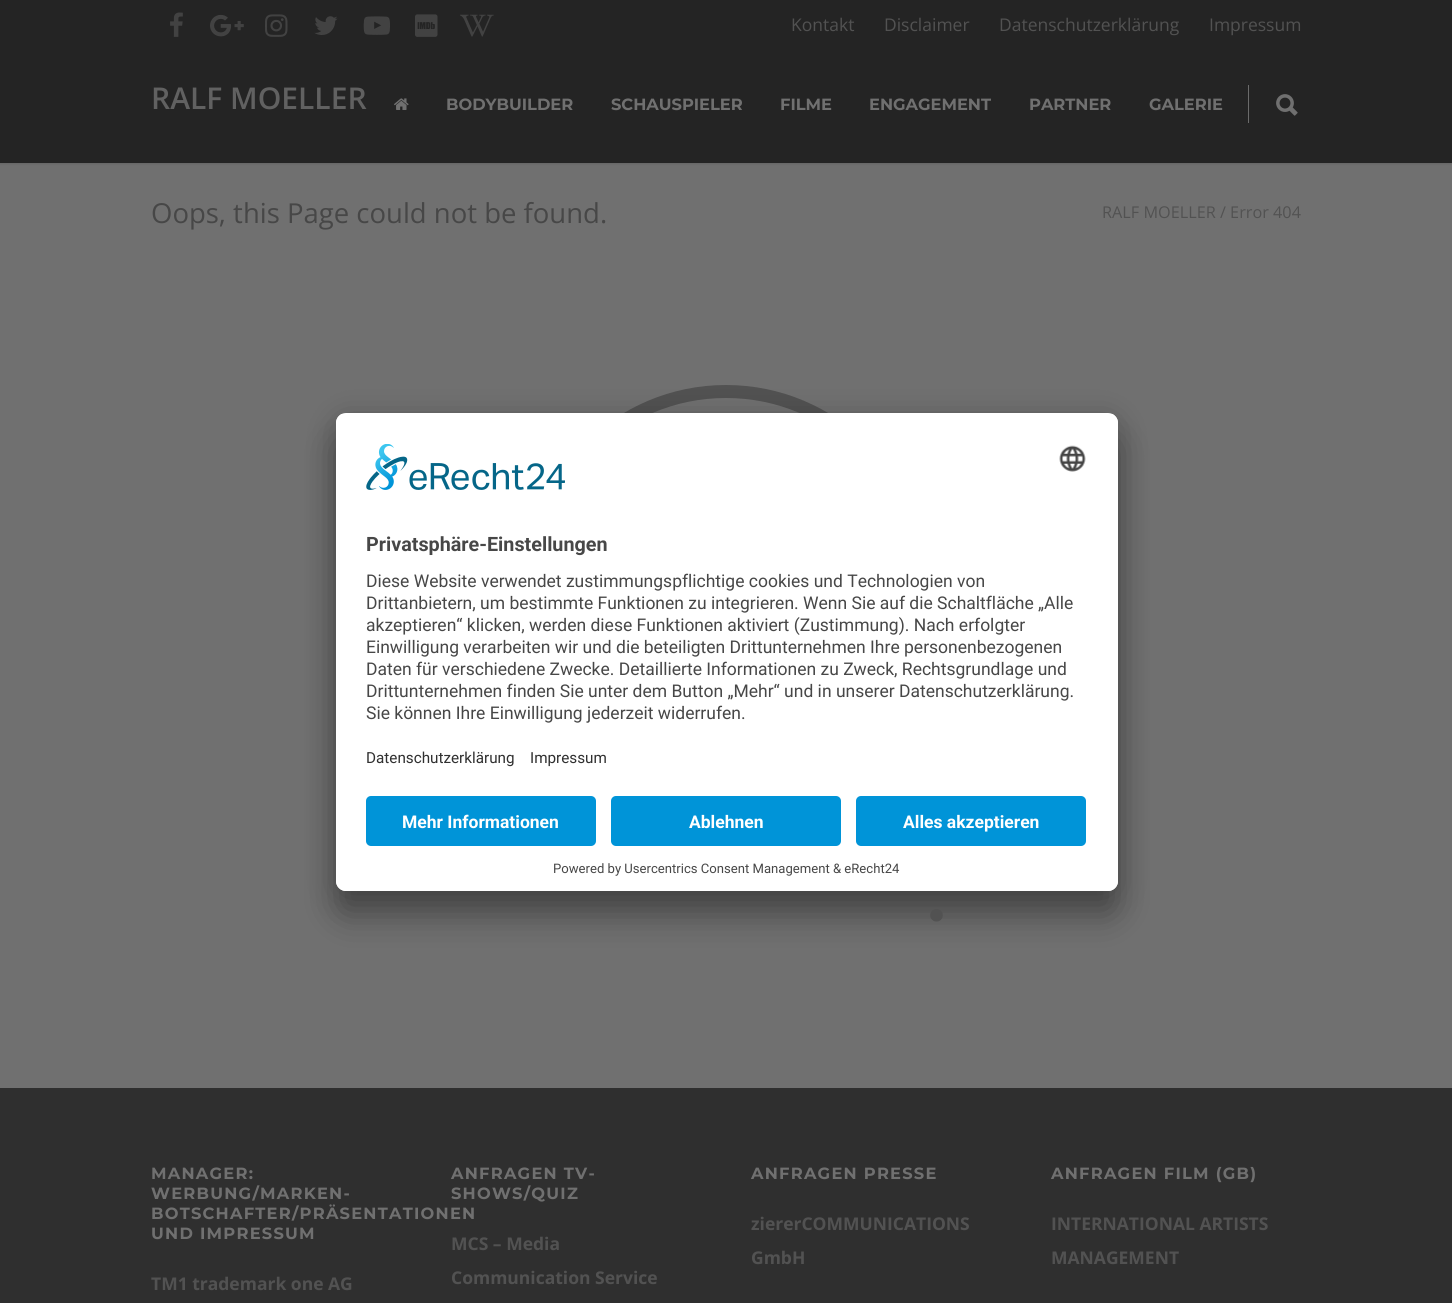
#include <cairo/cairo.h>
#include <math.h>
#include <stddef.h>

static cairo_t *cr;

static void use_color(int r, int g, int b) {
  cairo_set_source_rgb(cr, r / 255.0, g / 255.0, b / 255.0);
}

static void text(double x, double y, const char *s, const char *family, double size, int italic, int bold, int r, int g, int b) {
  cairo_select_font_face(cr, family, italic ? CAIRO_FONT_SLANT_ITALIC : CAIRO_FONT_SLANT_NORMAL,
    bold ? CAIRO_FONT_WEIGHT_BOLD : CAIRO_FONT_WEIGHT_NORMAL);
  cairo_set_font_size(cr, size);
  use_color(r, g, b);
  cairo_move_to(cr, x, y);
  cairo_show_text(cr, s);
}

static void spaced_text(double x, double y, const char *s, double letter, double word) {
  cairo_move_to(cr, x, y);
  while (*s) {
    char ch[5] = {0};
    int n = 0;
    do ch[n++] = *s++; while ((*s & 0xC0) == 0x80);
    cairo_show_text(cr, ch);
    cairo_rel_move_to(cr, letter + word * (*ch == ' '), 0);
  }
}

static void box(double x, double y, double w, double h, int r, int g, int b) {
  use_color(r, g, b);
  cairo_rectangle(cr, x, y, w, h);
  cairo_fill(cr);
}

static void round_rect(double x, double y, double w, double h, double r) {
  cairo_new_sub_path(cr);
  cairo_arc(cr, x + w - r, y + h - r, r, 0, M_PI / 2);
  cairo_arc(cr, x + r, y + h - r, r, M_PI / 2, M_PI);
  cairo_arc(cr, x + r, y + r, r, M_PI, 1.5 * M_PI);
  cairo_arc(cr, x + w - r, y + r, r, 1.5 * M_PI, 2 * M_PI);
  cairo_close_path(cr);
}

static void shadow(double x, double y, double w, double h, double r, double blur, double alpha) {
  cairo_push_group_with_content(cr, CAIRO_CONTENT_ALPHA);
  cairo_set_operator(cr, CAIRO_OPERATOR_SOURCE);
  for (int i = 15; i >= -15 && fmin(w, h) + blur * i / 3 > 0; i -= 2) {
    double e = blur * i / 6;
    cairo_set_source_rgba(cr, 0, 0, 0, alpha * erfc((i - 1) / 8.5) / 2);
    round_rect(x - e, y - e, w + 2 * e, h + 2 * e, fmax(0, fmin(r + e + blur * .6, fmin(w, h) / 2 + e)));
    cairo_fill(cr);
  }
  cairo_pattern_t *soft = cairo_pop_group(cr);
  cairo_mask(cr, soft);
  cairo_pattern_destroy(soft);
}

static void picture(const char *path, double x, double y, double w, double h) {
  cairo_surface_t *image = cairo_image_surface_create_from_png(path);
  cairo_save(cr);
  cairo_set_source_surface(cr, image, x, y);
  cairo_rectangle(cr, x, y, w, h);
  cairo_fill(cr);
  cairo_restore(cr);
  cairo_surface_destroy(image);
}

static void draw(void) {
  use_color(112, 112, 112);
  cairo_paint(cr);
  use_color(36, 36, 36);
  shadow(-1, 49, 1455, 115, 0, 1, 0.16);
  box(0, 0, 1452, 163, 36, 36, 36);
  picture("img_01.png", 170, 12, 13, 25);
  picture("img_02.png", 210, 14, 34, 23);
  picture("img_03.png", 265, 14, 23, 23);
  picture("img_04.png", 314, 16, 24, 19);
  picture("img_05.png", 363, 16, 27, 19);
  picture("img_06.png", 415, 14, 23, 23);
  picture("img_07.png", 460, 14, 34, 23);
  picture("img_08.png", 394, 98, 15, 12);
  box(1248, 85, 1, 38, 107, 107, 107);
  picture("img_09.png", 1276, 94, 22, 22);
  cairo_arc(cr, 726, 585, 193.5, 0, 2 * M_PI);
  use_color(82, 82, 82);
  cairo_set_line_width(cr, 13);
  cairo_stroke(cr);
  box(0, 1088, 1452, 215, 47, 47, 47);
  use_color(0, 0, 0);
  shadow(336, 438, 782, 478, 10, 17.5, 0.3);
  shadow(336, 419, 782, 479, 10, 16, 0.22);
  use_color(255, 255, 255);
  round_rect(336, 413, 782, 478, 10);
  cairo_fill(cr);
  cairo_save(cr);
  round_rect(336, 413, 782, 478, 10);
  cairo_clip(cr);
  cairo_new_path(cr);
  cairo_move_to(cr, 346, 413);
  cairo_line_to(cr, 1108, 413);
  cairo_curve_to(cr, 1113.5, 413, 1118, 417.5, 1118, 423);
  cairo_line_to(cr, 1118, 786);
  cairo_line_to(cr, 336, 786);
  cairo_line_to(cr, 336, 423);
  cairo_curve_to(cr, 336, 417.5, 340.5, 413, 346, 413);
  cairo_close_path(cr);
  cairo_clip(cr);
  box(336, 414, 782, 372, 255, 255, 255);
  cairo_restore(cr);
  picture("img_10.png", 366, 444, 199, 46);
  picture("img_11.png", 1059, 445, 27, 27);
  cairo_new_path(cr);
  cairo_move_to(cr, 336, 786);
  cairo_line_to(cr, 1118, 786);
  cairo_line_to(cr, 1118, 881);
  cairo_curve_to(cr, 1118, 886.5, 1113.5, 891, 1108, 891);
  cairo_line_to(cr, 346, 891);
  cairo_curve_to(cr, 340.5, 891, 336, 886.5, 336, 881);
  cairo_close_path(cr);
  cairo_fill(cr);
  use_color(0, 148, 216);
  round_rect(366, 796, 230, 50, 5);
  cairo_fill(cr);
  round_rect(611, 796, 230, 50, 5);
  cairo_fill(cr);
  round_rect(856, 796, 230, 50, 5);
  cairo_fill(cr);
  text(791, 31, "Kontakt", "Open Sans", 17.5, 0, 0, 82, 82, 82);
  text(884, 31, "Disclaimer", "Open Sans", 17.5, 0, 0, 82, 82, 82);
  text(999, 31, "Datenschutzerklärung", "Open Sans", 17.5, 0, 0, 82, 82, 82);
  text(1209, 31, "Impressum", "Open Sans", 17.5, 0, 0, 82, 82, 82);
  text(151, 109, "RALF MOELLER", "Open Sans SemiBold", 30, 0, 0, 97, 97, 97);
  text(446, 110, "BODYBUILDER", "Montserrat", 16.25, 0, 1, 112, 112, 112);
  text(611, 110, "SCHAUSPIELER", "Montserrat", 16.25, 0, 1, 112, 112, 112);
  text(780, 110, "FILME", "Montserrat", 16.25, 0, 1, 112, 112, 112);
  text(869, 110, "ENGAGEMENT", "Montserrat", 16.25, 0, 1, 112, 112, 112);
  text(1029, 110, "PARTNER", "Montserrat", 16.25, 0, 1, 112, 112, 112);
  text(1149, 110, "GALERIE", "Montserrat", 16.25, 0, 1, 112, 112, 112);
  text(151, 223, "Oops, this Page could not be found.", "Open Sans", 27.5, 0, 0, 71, 71, 71);
  text(1102, 218, "RALF MOELLER / Error 404", "Open Sans", 16.25, 0, 0, 82, 82, 82);
  text(928, 921, ".", "Montserrat", 65, 0, 1, 82, 82, 82);
  cairo_set_font_size(cr, 16.25);
  use_color(112, 112, 112);
  spaced_text(151, 1179, "MANAGER:", 1.25, 0);
  spaced_text(151, 1199, "WERBUNG/MARKEN-", 1.25, 0);
  spaced_text(151, 1219, "BOTSCHAFTER/PRÄSENTATIONEN", 1.25, 0);
  spaced_text(151, 1239, "UND IMPRESSUM", 1.25, 0);
  text(151, 1290, "TM1 trademark one AG", "Open Sans", 17.5, 0, 1, 82, 82, 82);
  cairo_select_font_face(cr, "Montserrat", CAIRO_FONT_SLANT_NORMAL, CAIRO_FONT_WEIGHT_BOLD);
  cairo_set_font_size(cr, 16.25);
  use_color(112, 112, 112);
  spaced_text(451, 1179, "ANFRAGEN TV-", 1.25, 0);
  spaced_text(451, 1199, "SHOWS/QUIZ", 1.25, 0);
  text(451, 1250, "MCS – Media", "Open Sans", 17.5, 0, 1, 82, 82, 82);
  text(451, 1284, "Communication Service", "Open Sans", 17.5, 0, 1, 82, 82, 82);
  cairo_select_font_face(cr, "Montserrat", CAIRO_FONT_SLANT_NORMAL, CAIRO_FONT_WEIGHT_BOLD);
  cairo_set_font_size(cr, 16.25);
  use_color(112, 112, 112);
  spaced_text(751, 1179, "ANFRAGEN PRESSE", 1.25, 0);
  text(751, 1230, "ziererCOMMUNICATIONS", "Open Sans", 17.5, 0, 1, 82, 82, 82);
  text(751, 1264, "GmbH", "Open Sans", 17.5, 0, 1, 82, 82, 82);
  cairo_select_font_face(cr, "Montserrat", CAIRO_FONT_SLANT_NORMAL, CAIRO_FONT_WEIGHT_BOLD);
  cairo_set_font_size(cr, 16.25);
  use_color(112, 112, 112);
  spaced_text(1051, 1179, "ANFRAGEN FILM (GB)", 1.25, 0);
  text(1051, 1230, "INTERNATIONAL ARTISTS", "Open Sans", 17.5, 0, 1, 82, 82, 82);
  text(1051, 1264, "MANAGEMENT", "Open Sans", 17.5, 0, 1, 82, 82, 82);
  text(366, 551, "Privatsphäre-Einstellungen", "Roboto", 19.75, 0, 1, 71, 71, 71);
  text(366, 587, "Diese Website verwendet zustimmungspflichtige cookies und Technologien von", "Roboto", 17.5, 0, 0, 71, 71, 71);
  text(366, 609, "Drittanbietern, um bestimmte Funktionen zu integrieren. Wenn Sie auf die Schaltfläche „Alle", "Roboto", 17.5, 0, 0, 71, 71, 71);
  text(366, 631, "akzeptieren“ klicken, werden diese Funktionen aktiviert (Zustimmung). Nach erfolgter", "Roboto", 17.5, 0, 0, 71, 71, 71);
  text(366, 653, "Einwilligung verarbeiten wir und die beteiligten Drittunternehmen Ihre personenbezogenen", "Roboto", 17.5, 0, 0, 71, 71, 71);
  text(366, 675, "Daten für verschiedene Zwecke. Detaillierte Informationen zu Zweck, Rechtsgrundlage und", "Roboto", 17.5, 0, 0, 71, 71, 71);
  text(366, 697, "Drittunternehmen finden Sie unter dem Button „Mehr“ und in unserer Datenschutzerklärung.", "Roboto", 17.5, 0, 0, 71, 71, 71);
  text(366, 719, "Sie können Ihre Einwilligung jederzeit widerrufen.", "Roboto", 17.5, 0, 0, 71, 71, 71);
  text(366, 763, "Datenschutzerklärung", "Roboto", 15.25, 0, 0, 48, 48, 48);
  text(530, 763, "Impressum", "Roboto", 15.25, 0, 0, 48, 48, 48);
  text(402, 828, "Mehr Informationen", "Roboto", 17.5, 0, 1, 255, 255, 255);
  text(689, 828, "Ablehnen", "Roboto", 17.5, 0, 1, 255, 255, 255);
  text(903, 828, "Alles akzeptieren", "Roboto", 17.5, 0, 1, 255, 255, 255);
  text(553, 873, "Powered by Usercentrics Consent Management & eRecht24", "Roboto", 13.1, 0, 0, 71, 71, 71);
}

int main(void) {
  cairo_surface_t *surface = cairo_image_surface_create(CAIRO_FORMAT_RGB24, 1452, 1303);
  cr = cairo_create(surface);
  cairo_font_options_t *options = cairo_font_options_create();
  cairo_font_options_set_hint_metrics(options, CAIRO_HINT_METRICS_OFF);
  cairo_font_options_set_hint_style(options, CAIRO_HINT_STYLE_NONE);
  cairo_set_font_options(cr, options);
  cairo_set_miter_limit(cr, 4);
  draw();
  cairo_surface_write_to_png(surface, "out.png");
  cairo_font_options_destroy(options);
  cairo_destroy(cr);
  cairo_surface_destroy(surface);
  return 0;
}
